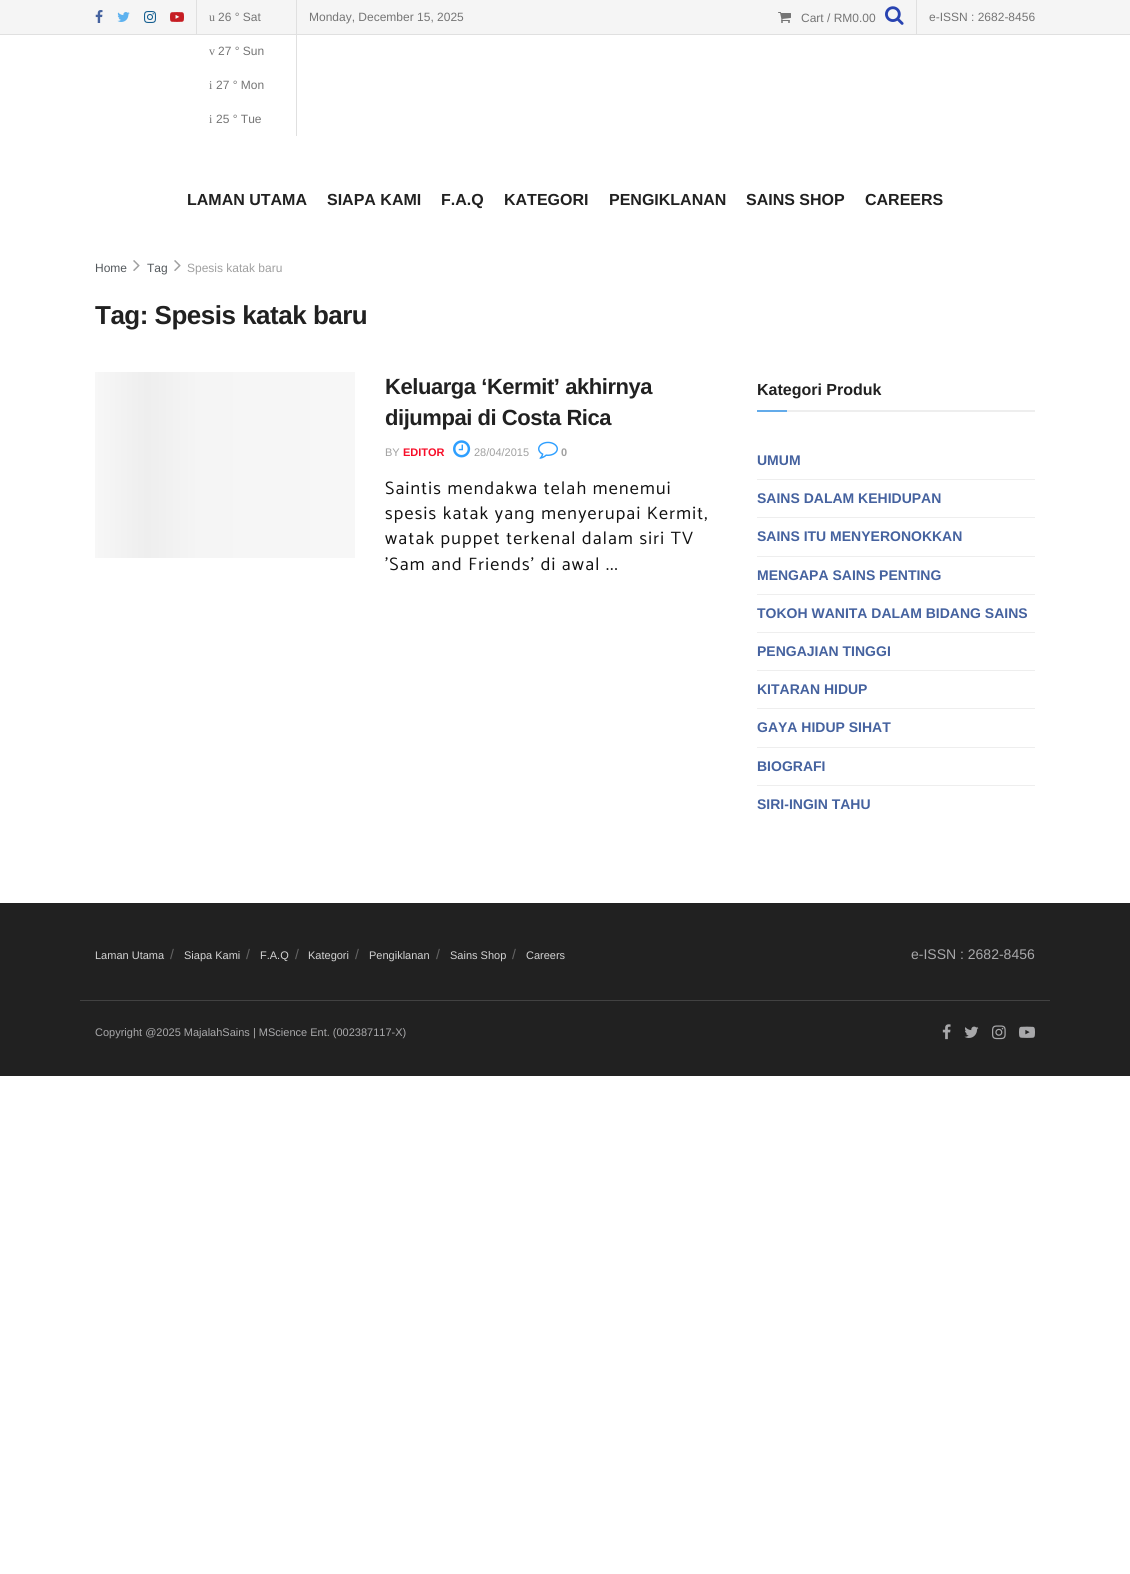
#include <cairo/cairo.h>
#include <math.h>
#include <stddef.h>

static cairo_t *cr;

static void use_color(int r, int g, int b) {
  cairo_set_source_rgb(cr, r / 255.0, g / 255.0, b / 255.0);
}

static void text(double x, double y, const char *s, const char *family, double size, int italic, int bold, int r, int g, int b) {
  cairo_select_font_face(cr, family, italic ? CAIRO_FONT_SLANT_ITALIC : CAIRO_FONT_SLANT_NORMAL,
    bold ? CAIRO_FONT_WEIGHT_BOLD : CAIRO_FONT_WEIGHT_NORMAL);
  cairo_set_font_size(cr, size);
  use_color(r, g, b);
  cairo_move_to(cr, x, y);
  cairo_show_text(cr, s);
}

static void spaced_text(double x, double y, const char *s, double letter, double word) {
  cairo_move_to(cr, x, y);
  while (*s) {
    char ch[5] = {0};
    int n = 0;
    do ch[n++] = *s++; while ((*s & 0xC0) == 0x80);
    cairo_show_text(cr, ch);
    cairo_rel_move_to(cr, letter + word * (*ch == ' '), 0);
  }
}

static void box(double x, double y, double w, double h, int r, int g, int b) {
  use_color(r, g, b);
  cairo_rectangle(cr, x, y, w, h);
  cairo_fill(cr);
}

static void picture(const char *path, double x, double y, double w, double h) {
  cairo_surface_t *image = cairo_image_surface_create_from_png(path);
  cairo_save(cr);
  cairo_set_source_surface(cr, image, x, y);
  cairo_rectangle(cr, x, y, w, h);
  cairo_fill(cr);
  cairo_restore(cr);
  cairo_surface_destroy(image);
}

static void draw(void) {
  cairo_pattern_t *gradient;
  use_color(255, 255, 255);
  cairo_paint(cr);
  box(0, 0, 1130, 34, 245, 245, 245);
  box(0, 34, 1130, 1, 224, 224, 224);
  box(196, 0, 1, 35, 224, 224, 224);
  picture("img_01.png", 95, 10, 8, 13);
  picture("img_02.png", 117, 12, 13, 10);
  picture("img_03.png", 144, 11, 12, 12);
  picture("img_04.png", 170, 12, 14, 10);
  box(296, 0, 1, 136, 224, 224, 224);
  picture("img_05.png", 778, 12, 13, 11);
  box(916, 0, 1, 34, 224, 224, 224);
  picture("img_06.png", 885, 6, 19, 19);
  picture("img_07.png", 133, 260, 7, 11);
  picture("img_07.png", 174, 260, 7, 11);
  gradient = cairo_pattern_create_linear(95, 465, 355, 465);
  cairo_pattern_add_color_stop_rgba(gradient, 0, 0.969, 0.969, 0.969, 1);
  cairo_pattern_add_color_stop_rgba(gradient, 0.2, 0.933, 0.933, 0.933, 1);
  cairo_pattern_add_color_stop_rgba(gradient, 0.4, 0.961, 0.961, 0.961, 1);
  cairo_pattern_add_color_stop_rgba(gradient, 1, 0.969, 0.969, 0.969, 1);
  cairo_set_source(cr, gradient);
  cairo_pattern_destroy(gradient);
  cairo_rectangle(cr, 95, 372, 260, 186);
  cairo_fill(cr);
  picture("img_08.png", 453, 440, 18, 18);
  picture("img_09.png", 538, 441, 20, 18);
  box(787, 410, 248, 2, 238, 238, 238);
  box(757, 410, 30, 2, 99, 171, 234);
  box(757, 479, 278, 1, 238, 238, 238);
  box(757, 517, 278, 1, 238, 238, 238);
  box(757, 556, 278, 1, 238, 238, 238);
  box(757, 594, 278, 1, 238, 238, 238);
  box(757, 632, 278, 1, 238, 238, 238);
  box(757, 670, 278, 1, 238, 238, 238);
  box(757, 708, 278, 1, 238, 238, 238);
  box(757, 747, 278, 1, 238, 238, 238);
  box(757, 785, 278, 1, 238, 238, 238);
  box(0, 903, 1130, 173, 33, 33, 33);
  box(80, 1000, 970, 1, 66, 66, 66);
  picture("img_10.png", 942, 1024, 9, 16);
  picture("img_11.png", 964, 1026, 15, 12);
  picture("img_12.png", 992, 1025, 14, 15);
  picture("img_13.png", 1019, 1026, 16, 12);
  text(209, 21, "u", "Liberation Serif", 12, 0, 0, 117, 117, 117);
  text(218, 21, "26 ° Sat", "Liberation Sans", 12, 0, 0, 117, 117, 117);
  text(209, 55, "v", "Liberation Serif", 12, 0, 0, 117, 117, 117);
  text(218, 55, "27 ° Sun", "Liberation Sans", 12, 0, 0, 117, 117, 117);
  text(209, 89, "i", "Liberation Serif", 12, 0, 0, 117, 117, 117);
  text(216, 89, "27 ° Mon", "Liberation Sans", 12, 0, 0, 117, 117, 117);
  text(209, 123, "i", "Liberation Serif", 12, 0, 0, 117, 117, 117);
  text(216, 123, "25 ° Tue", "Liberation Sans", 12, 0, 0, 117, 117, 117);
  text(309, 21, "Monday, December 15, 2025", "Liberation Sans", 12, 0, 0, 117, 117, 117);
  text(801, 22, "Cart / RM0.00", "Liberation Sans", 12, 0, 0, 117, 117, 117);
  text(929, 21, "e-ISSN : 2682-8456", "Liberation Sans", 12, 0, 0, 117, 117, 117);
  text(187, 205, "LAMAN UTAMA", "Liberation Sans", 16, 0, 1, 33, 33, 33);
  text(327, 205, "SIAPA KAMI", "Liberation Sans", 16, 0, 1, 33, 33, 33);
  text(441, 205, "F.A.Q", "Liberation Sans", 16, 0, 1, 33, 33, 33);
  text(504, 205, "KATEGORI", "Liberation Sans", 16, 0, 1, 33, 33, 33);
  text(609, 205, "PENGIKLANAN", "Liberation Sans", 16, 0, 1, 33, 33, 33);
  text(746, 205, "SAINS SHOP", "Liberation Sans", 16, 0, 1, 33, 33, 33);
  text(865, 205, "CAREERS", "Liberation Sans", 16, 0, 1, 33, 33, 33);
  text(95, 272, "Home", "Liberation Sans", 12, 0, 0, 83, 88, 92);
  text(147, 272, "Tag", "Liberation Sans", 12, 0, 0, 83, 88, 92);
  text(187, 272, "Spesis katak baru", "Liberation Sans", 12, 0, 0, 160, 160, 160);
  cairo_select_font_face(cr, "Liberation Sans", CAIRO_FONT_SLANT_NORMAL, CAIRO_FONT_WEIGHT_BOLD);
  cairo_set_font_size(cr, 26);
  use_color(33, 33, 33);
  spaced_text(95, 324, "Tag: Spesis katak baru", -0.5, 0);
  cairo_set_font_size(cr, 22);
  spaced_text(385, 394, "Keluarga ‘Kermit’ akhirnya", -0.45, 0);
  spaced_text(385, 425, "dijumpai di Costa Rica", -0.45, 0);
  text(385, 456, "BY", "Liberation Sans", 11, 0, 0, 160, 160, 160);
  text(403, 456, "EDITOR", "Liberation Sans", 11, 0, 1, 247, 13, 40);
  text(474, 456, "28/04/2015", "Liberation Sans", 11, 0, 0, 160, 160, 160);
  text(561, 456, "0", "Liberation Sans", 11, 0, 1, 160, 160, 160);
  cairo_select_font_face(cr, "Catamaran Thin", CAIRO_FONT_SLANT_NORMAL, CAIRO_FONT_WEIGHT_NORMAL);
  cairo_set_font_size(cr, 18);
  use_color(17, 17, 17);
  spaced_text(385, 494, "Saintis mendakwa telah menemui", 1.25, 0);
  spaced_text(385, 519, "spesis katak yang menyerupai Kermit,", 1.25, 0);
  spaced_text(385, 544, "watak puppet terkenal dalam siri TV", 1.25, 0);
  spaced_text(385, 570, "'Sam and Friends' di awal ...", 1.25, 0);
  text(757, 395, "Kategori Produk", "Liberation Sans", 16, 0, 1, 33, 33, 33);
  text(757, 465, "UMUM", "Liberation Sans", 14, 0, 1, 69, 98, 159);
  text(757, 503, "SAINS DALAM KEHIDUPAN", "Liberation Sans", 14, 0, 1, 69, 98, 159);
  text(757, 541, "SAINS ITU MENYERONOKKAN", "Liberation Sans", 14, 0, 1, 69, 98, 159);
  text(757, 580, "MENGAPA SAINS PENTING", "Liberation Sans", 14, 0, 1, 69, 98, 159);
  text(757, 618, "TOKOH WANITA DALAM BIDANG SAINS", "Liberation Sans", 14, 0, 1, 69, 98, 159);
  text(757, 656, "PENGAJIAN TINGGI", "Liberation Sans", 14, 0, 1, 69, 98, 159);
  text(757, 694, "KITARAN HIDUP", "Liberation Sans", 14, 0, 1, 69, 98, 159);
  text(757, 732, "GAYA HIDUP SIHAT", "Liberation Sans", 14, 0, 1, 69, 98, 159);
  text(757, 771, "BIOGRAFI", "Liberation Sans", 14, 0, 1, 69, 98, 159);
  text(757, 809, "SIRI-INGIN TAHU", "Liberation Sans", 14, 0, 1, 69, 98, 159);
  text(95, 959, "Laman Utama", "Liberation Sans", 11, 0, 0, 211, 211, 211);
  text(170, 959, "/", "Liberation Sans", 14, 0, 0, 100, 100, 100);
  text(184, 959, "Siapa Kami", "Liberation Sans", 11, 0, 0, 211, 211, 211);
  text(246, 959, "/", "Liberation Sans", 14, 0, 0, 100, 100, 100);
  text(260, 959, "F.A.Q", "Liberation Sans", 11, 0, 0, 211, 211, 211);
  text(295, 959, "/", "Liberation Sans", 14, 0, 0, 100, 100, 100);
  text(308, 959, "Kategori", "Liberation Sans", 11, 0, 0, 211, 211, 211);
  text(355, 959, "/", "Liberation Sans", 14, 0, 0, 100, 100, 100);
  text(369, 959, "Pengiklanan", "Liberation Sans", 11, 0, 0, 211, 211, 211);
  text(436, 959, "/", "Liberation Sans", 14, 0, 0, 100, 100, 100);
  text(450, 959, "Sains Shop", "Liberation Sans", 11, 0, 0, 211, 211, 211);
  text(512, 959, "/", "Liberation Sans", 14, 0, 0, 100, 100, 100);
  text(526, 959, "Careers", "Liberation Sans", 11, 0, 0, 211, 211, 211);
  text(911, 959, "e-ISSN : 2682-8456", "Liberation Sans", 14, 0, 0, 168, 168, 170);
  text(95, 1036, "Copyright @2025 MajalahSains | MScience Ent. (002387117-X)", "Liberation Sans", 11, 0, 0, 168, 168, 170);
}

int main(void) {
  cairo_surface_t *surface = cairo_image_surface_create(CAIRO_FORMAT_RGB24, 1130, 1574);
  cr = cairo_create(surface);
  cairo_font_options_t *options = cairo_font_options_create();
  cairo_font_options_set_hint_metrics(options, CAIRO_HINT_METRICS_OFF);
  cairo_font_options_set_hint_style(options, CAIRO_HINT_STYLE_NONE);
  cairo_set_font_options(cr, options);
  cairo_set_miter_limit(cr, 4);
  draw();
  cairo_surface_write_to_png(surface, "out.png");
  cairo_font_options_destroy(options);
  cairo_destroy(cr);
  cairo_surface_destroy(surface);
  return 0;
}
